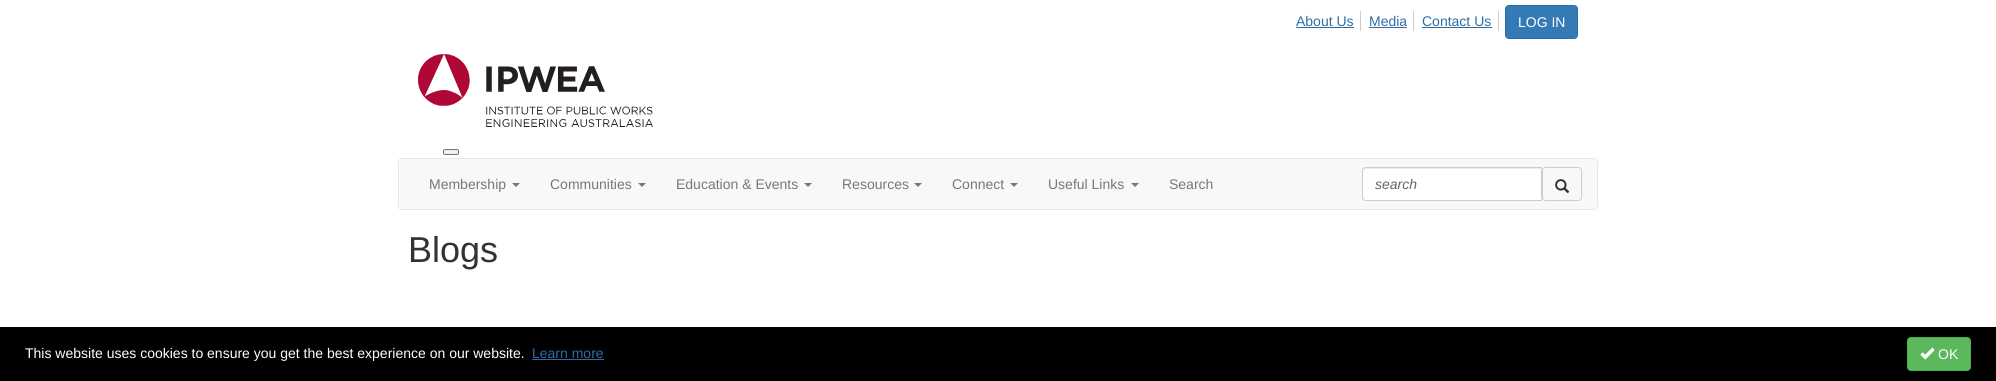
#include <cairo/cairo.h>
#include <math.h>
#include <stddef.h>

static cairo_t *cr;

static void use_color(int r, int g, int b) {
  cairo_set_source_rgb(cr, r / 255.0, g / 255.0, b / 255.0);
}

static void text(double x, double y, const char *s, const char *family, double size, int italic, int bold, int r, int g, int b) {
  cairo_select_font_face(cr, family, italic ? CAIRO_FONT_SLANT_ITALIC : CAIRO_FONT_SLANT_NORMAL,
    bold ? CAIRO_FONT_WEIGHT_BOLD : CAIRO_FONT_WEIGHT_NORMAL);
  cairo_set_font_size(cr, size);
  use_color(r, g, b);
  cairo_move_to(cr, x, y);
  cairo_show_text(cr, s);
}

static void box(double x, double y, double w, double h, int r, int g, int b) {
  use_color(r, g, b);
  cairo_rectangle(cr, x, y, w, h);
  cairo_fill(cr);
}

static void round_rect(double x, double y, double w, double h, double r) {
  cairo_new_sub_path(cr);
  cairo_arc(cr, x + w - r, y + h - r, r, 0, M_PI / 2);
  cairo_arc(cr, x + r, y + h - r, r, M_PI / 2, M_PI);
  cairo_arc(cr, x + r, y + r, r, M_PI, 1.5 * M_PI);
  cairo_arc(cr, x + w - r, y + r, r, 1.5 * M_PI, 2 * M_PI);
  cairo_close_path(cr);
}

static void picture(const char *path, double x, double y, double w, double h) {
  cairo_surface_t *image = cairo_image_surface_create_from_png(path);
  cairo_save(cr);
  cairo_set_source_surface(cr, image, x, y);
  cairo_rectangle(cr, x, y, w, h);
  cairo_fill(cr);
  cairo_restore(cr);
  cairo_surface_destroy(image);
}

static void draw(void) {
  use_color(255, 255, 255);
  cairo_paint(cr);
  box(1360, 11, 1, 20, 204, 204, 204);
  box(1296, 27, 58, 1, 46, 109, 164);
  box(1413, 11, 1, 20, 204, 204, 204);
  box(1369, 27, 38, 1, 46, 109, 164);
  box(1498, 11, 1, 20, 204, 204, 204);
  box(1422, 27, 70, 1, 46, 109, 164);
  use_color(51, 122, 183);
  round_rect(1505.5, 5.5, 72, 33, 3.5);
  cairo_fill_preserve(cr);
  use_color(46, 109, 164);
  cairo_set_line_width(cr, 1);
  cairo_stroke(cr);
  picture("img_01.png", 418, 54, 235, 73);
  use_color(239, 239, 239);
  round_rect(443.5, 149.5, 15, 5, 1.5);
  cairo_fill_preserve(cr);
  use_color(118, 118, 118);
  cairo_stroke(cr);
  use_color(248, 248, 248);
  round_rect(398.5, 158.5, 1199, 51, 3.5);
  cairo_fill_preserve(cr);
  use_color(231, 231, 231);
  cairo_stroke(cr);
  use_color(119, 119, 119);
  cairo_new_path(cr);
  cairo_move_to(cr, 512, 183);
  cairo_line_to(cr, 520, 183);
  cairo_line_to(cr, 516, 187);
  cairo_close_path(cr);
  cairo_fill(cr);
  cairo_new_path(cr);
  cairo_move_to(cr, 638, 183);
  cairo_line_to(cr, 646, 183);
  cairo_line_to(cr, 642, 187);
  cairo_close_path(cr);
  cairo_fill(cr);
  cairo_new_path(cr);
  cairo_move_to(cr, 804, 183);
  cairo_line_to(cr, 812, 183);
  cairo_line_to(cr, 808, 187);
  cairo_close_path(cr);
  cairo_fill(cr);
  cairo_new_path(cr);
  cairo_move_to(cr, 914, 183);
  cairo_line_to(cr, 922, 183);
  cairo_line_to(cr, 918, 187);
  cairo_close_path(cr);
  cairo_fill(cr);
  cairo_new_path(cr);
  cairo_move_to(cr, 1010, 183);
  cairo_line_to(cr, 1018, 183);
  cairo_line_to(cr, 1014, 187);
  cairo_close_path(cr);
  cairo_fill(cr);
  cairo_new_path(cr);
  cairo_move_to(cr, 1131, 183);
  cairo_line_to(cr, 1139, 183);
  cairo_line_to(cr, 1135, 187);
  cairo_close_path(cr);
  cairo_fill(cr);
  use_color(255, 255, 255);
  cairo_new_path(cr);
  cairo_move_to(cr, 1366, 167);
  cairo_line_to(cr, 1542, 167);
  cairo_line_to(cr, 1542, 201);
  cairo_line_to(cr, 1366, 201);
  cairo_curve_to(cr, 1364, 201, 1362, 199, 1362, 197);
  cairo_line_to(cr, 1362, 171);
  cairo_curve_to(cr, 1362, 169, 1364, 167, 1366, 167);
  cairo_close_path(cr);
  cairo_fill(cr);
  use_color(236, 236, 236);
  cairo_new_path(cr);
  cairo_move_to(cr, 1366, 169);
  cairo_line_to(cr, 1541, 169);
  cairo_line_to(cr, 1541, 168);
  cairo_line_to(cr, 1365, 168);
  cairo_curve_to(cr, 1363, 169, 1363, 170, 1363, 172);
  cairo_curve_to(cr, 1363, 170, 1364, 169, 1366, 169);
  cairo_close_path(cr);
  cairo_fill(cr);
  cairo_new_path(cr);
  cairo_move_to(cr, 1366, 167.5);
  cairo_line_to(cr, 1541.5, 167.5);
  cairo_line_to(cr, 1541.5, 200.5);
  cairo_line_to(cr, 1366, 200.5);
  cairo_curve_to(cr, 1364, 200.5, 1362.5, 199, 1362.5, 197);
  cairo_line_to(cr, 1362.5, 171);
  cairo_curve_to(cr, 1362.5, 169, 1364, 167.5, 1366, 167.5);
  cairo_close_path(cr);
  use_color(204, 204, 204);
  cairo_stroke(cr);
  round_rect(1542.5, 167.5, 39, 33, 3.5);
  cairo_stroke(cr);
  picture("img_02.png", 1555, 179, 15, 14);
  box(0, 327, 1996, 54, 0, 0, 0);
  box(532, 359, 72, 1, 46, 109, 164);
  use_color(92, 184, 92);
  round_rect(1907.5, 337.5, 63, 33, 3.5);
  cairo_fill_preserve(cr);
  use_color(76, 174, 76);
  cairo_stroke(cr);
  picture("img_03.png", 1920, 347, 15, 13);
  text(1296, 26, "About Us", "Liberation Sans", 14, 0, 0, 46, 109, 164);
  text(1369, 26, "Media", "Liberation Sans", 14, 0, 0, 46, 109, 164);
  text(1422, 26, "Contact Us", "Liberation Sans", 14, 0, 0, 46, 109, 164);
  text(1518, 27, "LOG IN", "Liberation Sans", 14, 0, 0, 255, 255, 255);
  text(429, 189, "Membership", "Liberation Sans", 14, 0, 0, 119, 119, 119);
  text(550, 189, "Communities", "Liberation Sans", 14, 0, 0, 119, 119, 119);
  text(676, 189, "Education & Events", "Liberation Sans", 14, 0, 0, 119, 119, 119);
  text(842, 189, "Resources", "Liberation Sans", 14, 0, 0, 119, 119, 119);
  text(952, 189, "Connect", "Liberation Sans", 14, 0, 0, 119, 119, 119);
  text(1048, 189, "Useful Links", "Liberation Sans", 14, 0, 0, 119, 119, 119);
  text(1169, 189, "Search", "Liberation Sans", 14, 0, 0, 119, 119, 119);
  text(1375, 189, "search", "Liberation Sans", 14, 1, 0, 102, 102, 102);
  text(408, 262, "Blogs", "Liberation Sans", 36, 0, 0, 51, 51, 51);
  text(25, 358, "This website uses cookies to ensure you get the best experience on our website.", "Liberation Sans", 14, 0, 0, 255, 255, 255);
  text(532, 358, "Learn more", "Liberation Sans", 14, 0, 0, 46, 109, 164);
  text(1938, 359, "OK", "Liberation Sans", 14, 0, 0, 255, 255, 255);
}

int main(void) {
  cairo_surface_t *surface = cairo_image_surface_create(CAIRO_FORMAT_RGB24, 1996, 381);
  cr = cairo_create(surface);
  cairo_font_options_t *options = cairo_font_options_create();
  cairo_font_options_set_hint_metrics(options, CAIRO_HINT_METRICS_OFF);
  cairo_font_options_set_hint_style(options, CAIRO_HINT_STYLE_NONE);
  cairo_set_font_options(cr, options);
  cairo_set_miter_limit(cr, 4);
  draw();
  cairo_surface_write_to_png(surface, "out.png");
  cairo_font_options_destroy(options);
  cairo_destroy(cr);
  cairo_surface_destroy(surface);
  return 0;
}
